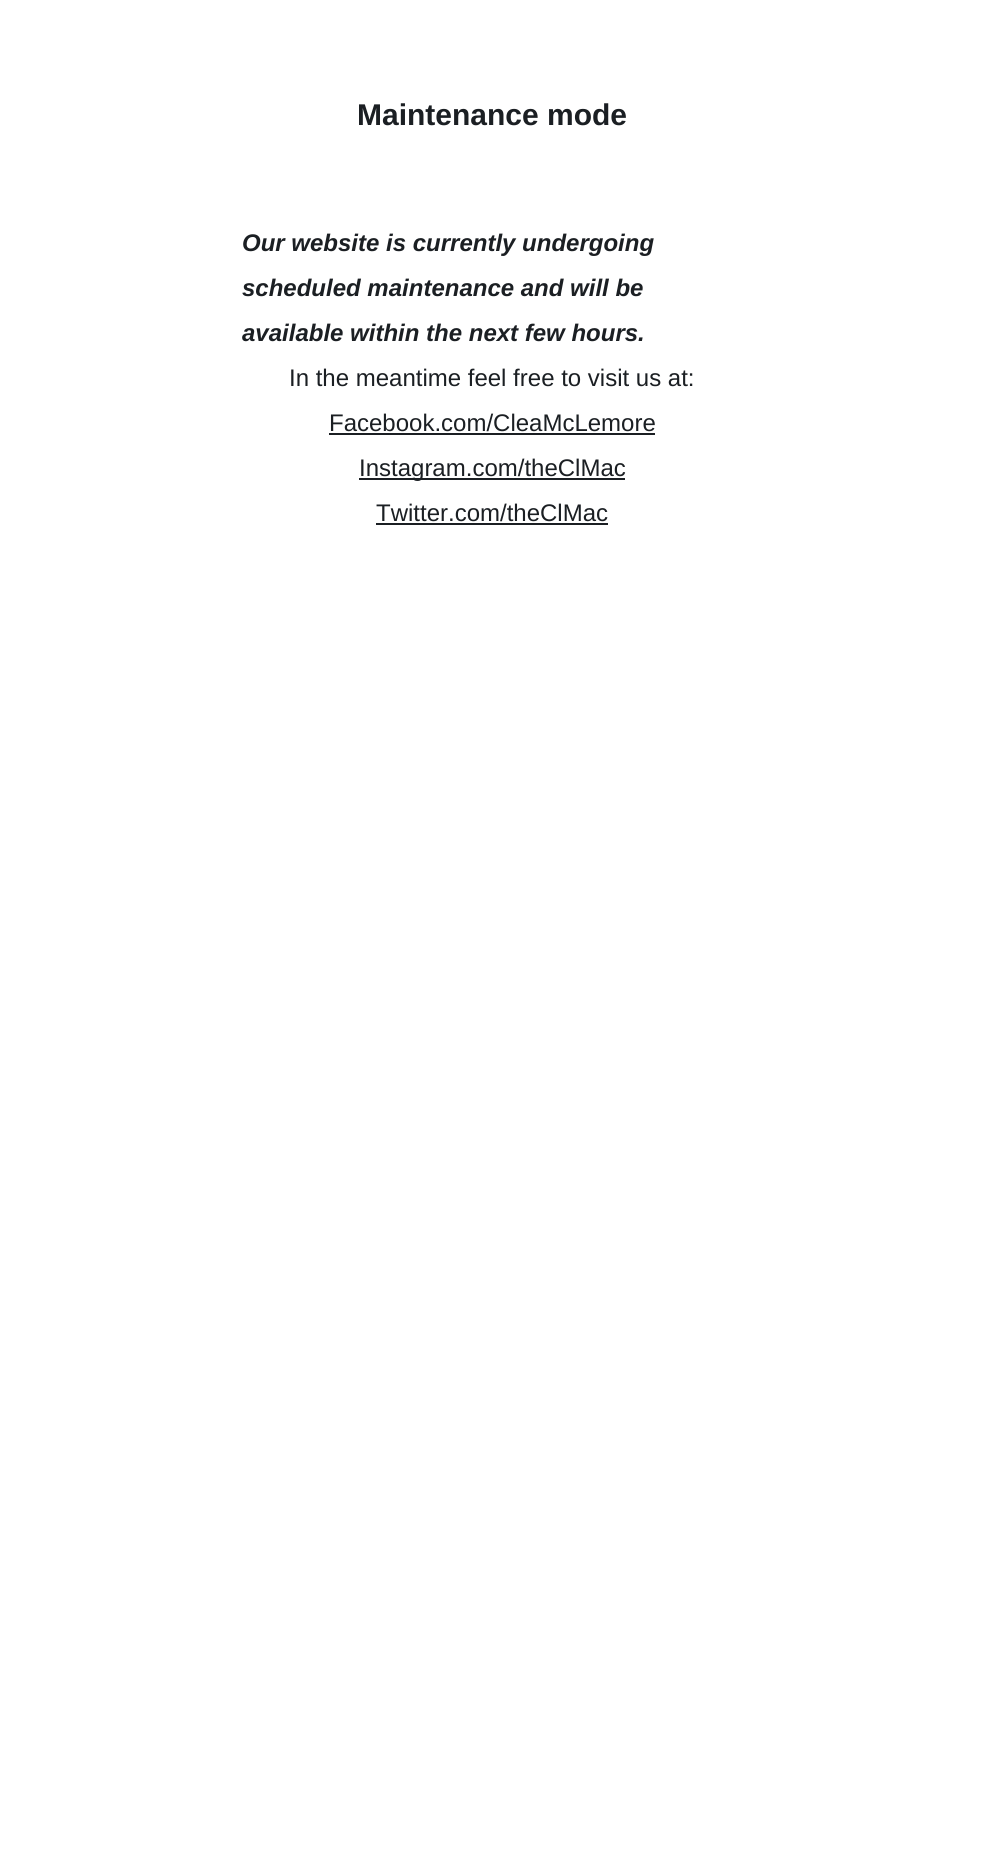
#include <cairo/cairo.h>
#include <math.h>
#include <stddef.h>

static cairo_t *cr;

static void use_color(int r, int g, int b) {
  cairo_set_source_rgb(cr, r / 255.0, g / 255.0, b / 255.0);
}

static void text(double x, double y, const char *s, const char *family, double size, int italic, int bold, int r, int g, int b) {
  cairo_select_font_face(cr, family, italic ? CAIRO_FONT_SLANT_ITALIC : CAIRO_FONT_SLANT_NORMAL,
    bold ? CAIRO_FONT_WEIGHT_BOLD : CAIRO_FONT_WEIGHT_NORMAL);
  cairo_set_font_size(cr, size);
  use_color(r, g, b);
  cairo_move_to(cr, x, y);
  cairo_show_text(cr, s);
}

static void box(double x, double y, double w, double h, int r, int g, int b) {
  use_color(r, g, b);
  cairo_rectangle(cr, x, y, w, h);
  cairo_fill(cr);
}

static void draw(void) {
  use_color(255, 255, 255);
  cairo_paint(cr);
  box(329, 433, 326, 2, 27, 31, 35);
  box(359, 478, 266, 2, 27, 31, 35);
  box(376, 523, 232, 2, 27, 31, 35);
  text(357, 125, "Maintenance mode", "Liberation Sans", 30, 0, 1, 27, 31, 35);
  text(242, 251, "Our website is currently undergoing", "Liberation Sans", 24, 1, 1, 27, 31, 35);
  text(242, 296, "scheduled maintenance and will be", "Liberation Sans", 24, 1, 1, 27, 31, 35);
  text(242, 341, "available within the next few hours.", "Liberation Sans", 24, 1, 1, 27, 31, 35);
  text(289, 386, "In the meantime feel free to visit us at:", "Liberation Sans", 24, 0, 0, 27, 31, 35);
  text(329, 431, "Facebook.com/CleaMcLemore", "Liberation Sans", 24, 0, 0, 27, 31, 35);
  text(359, 476, "Instagram.com/theClMac", "Liberation Sans", 24, 0, 0, 27, 31, 35);
  text(376, 521, "Twitter.com/theClMac", "Liberation Sans", 24, 0, 0, 27, 31, 35);
}

int main(void) {
  cairo_surface_t *surface = cairo_image_surface_create(CAIRO_FORMAT_RGB24, 984, 1862);
  cr = cairo_create(surface);
  cairo_font_options_t *options = cairo_font_options_create();
  cairo_font_options_set_hint_metrics(options, CAIRO_HINT_METRICS_OFF);
  cairo_font_options_set_hint_style(options, CAIRO_HINT_STYLE_NONE);
  cairo_set_font_options(cr, options);
  cairo_set_miter_limit(cr, 4);
  draw();
  cairo_surface_write_to_png(surface, "out.png");
  cairo_font_options_destroy(options);
  cairo_destroy(cr);
  cairo_surface_destroy(surface);
  return 0;
}
